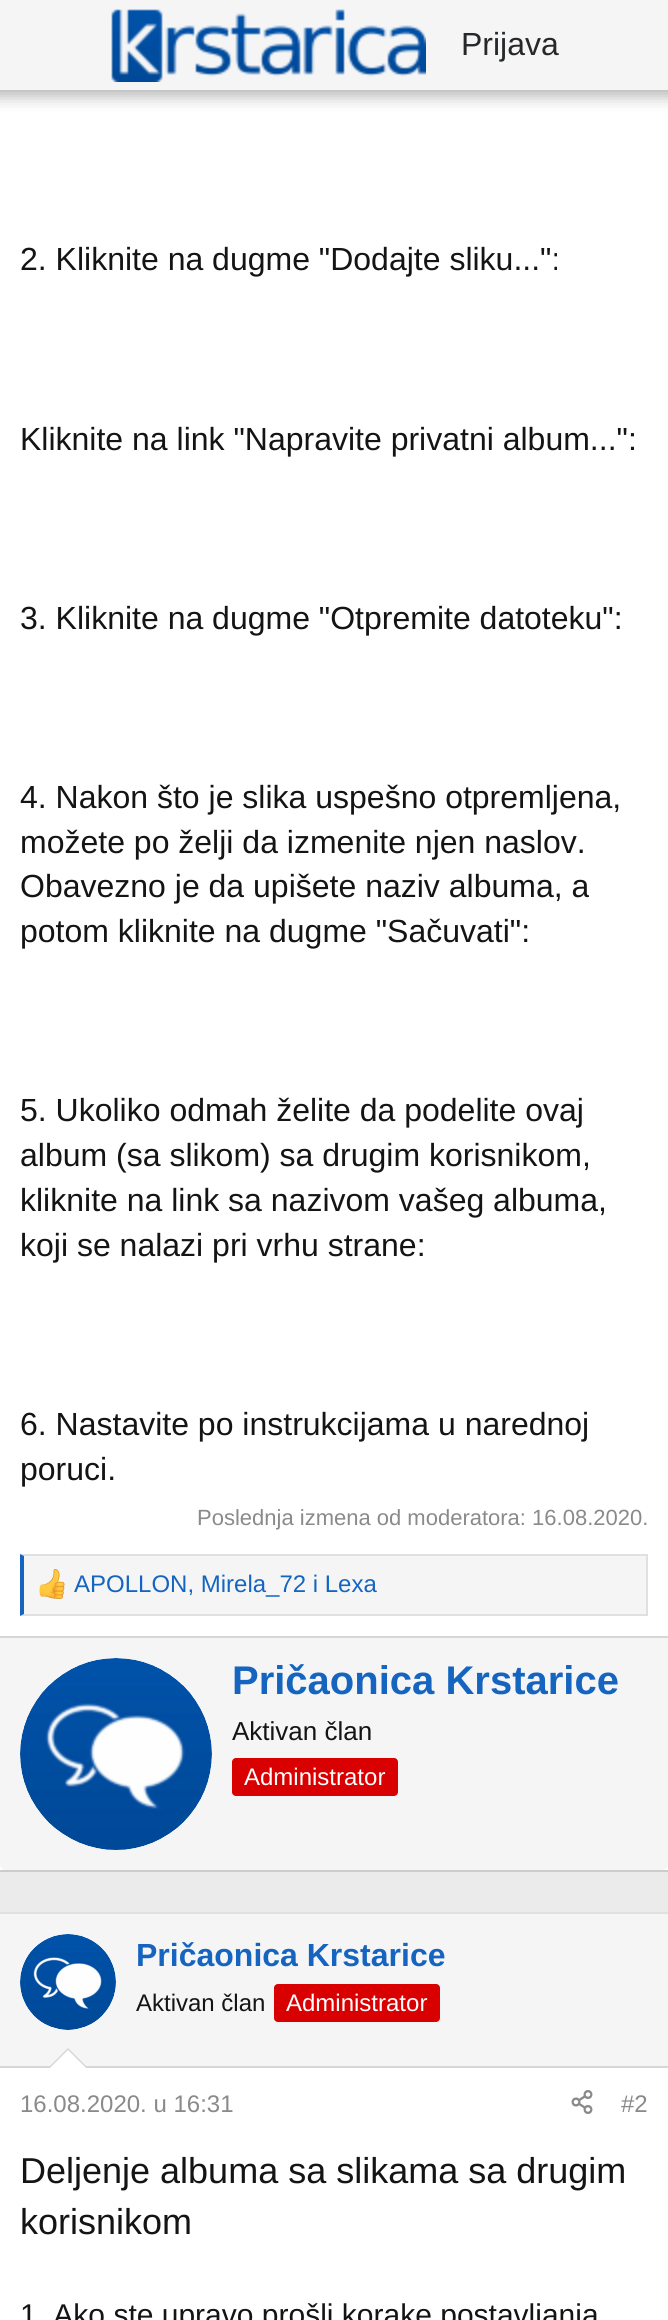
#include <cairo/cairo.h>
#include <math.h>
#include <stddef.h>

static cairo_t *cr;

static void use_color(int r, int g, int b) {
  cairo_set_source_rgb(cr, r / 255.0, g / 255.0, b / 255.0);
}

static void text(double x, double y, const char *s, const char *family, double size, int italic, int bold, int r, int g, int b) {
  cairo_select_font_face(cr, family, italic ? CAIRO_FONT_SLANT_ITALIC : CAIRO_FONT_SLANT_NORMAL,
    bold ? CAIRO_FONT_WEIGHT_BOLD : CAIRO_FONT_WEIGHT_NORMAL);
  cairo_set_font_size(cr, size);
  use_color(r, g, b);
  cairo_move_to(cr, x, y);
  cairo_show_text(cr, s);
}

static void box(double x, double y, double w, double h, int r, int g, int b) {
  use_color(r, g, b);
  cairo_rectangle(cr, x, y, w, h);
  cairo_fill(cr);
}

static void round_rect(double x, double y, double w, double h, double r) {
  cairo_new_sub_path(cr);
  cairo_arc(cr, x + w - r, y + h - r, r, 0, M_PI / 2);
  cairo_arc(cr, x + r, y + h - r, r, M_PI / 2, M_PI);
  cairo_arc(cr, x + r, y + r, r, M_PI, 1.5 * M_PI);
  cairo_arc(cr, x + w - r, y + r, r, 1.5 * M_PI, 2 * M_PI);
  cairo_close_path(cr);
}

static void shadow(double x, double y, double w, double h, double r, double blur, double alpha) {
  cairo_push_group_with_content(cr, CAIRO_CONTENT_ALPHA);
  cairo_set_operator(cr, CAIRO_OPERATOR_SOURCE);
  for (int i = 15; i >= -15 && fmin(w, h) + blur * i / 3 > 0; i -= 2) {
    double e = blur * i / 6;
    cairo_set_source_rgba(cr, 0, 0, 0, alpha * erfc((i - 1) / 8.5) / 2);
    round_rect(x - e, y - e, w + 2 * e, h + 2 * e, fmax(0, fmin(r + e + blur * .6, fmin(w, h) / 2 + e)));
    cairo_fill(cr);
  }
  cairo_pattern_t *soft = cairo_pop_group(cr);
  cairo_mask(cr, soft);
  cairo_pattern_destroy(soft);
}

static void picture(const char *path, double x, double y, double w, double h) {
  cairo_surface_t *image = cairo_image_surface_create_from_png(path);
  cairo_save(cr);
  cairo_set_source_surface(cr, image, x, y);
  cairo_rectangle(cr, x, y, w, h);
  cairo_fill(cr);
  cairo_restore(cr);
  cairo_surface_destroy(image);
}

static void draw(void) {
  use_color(235, 235, 235);
  cairo_paint(cr);
  box(0, 90, 668, 1780, 255, 255, 255);
  use_color(0, 0, 0);
  shadow(-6, -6, 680, 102, 0, 8, 0.3);
  box(0, 0, 668, 90, 245, 245, 245);
  picture("img_01.png", 111, 9, 315, 73);
  box(0, 1870, 668, 2, 204, 204, 204);
  box(24, 1556, 622, 58, 245, 245, 245);
  use_color(224, 224, 224);
  cairo_new_path(cr);
  cairo_move_to(cr, 20, 1554);
  cairo_line_to(cr, 648, 1554);
  cairo_line_to(cr, 646, 1556);
  cairo_line_to(cr, 24, 1556);
  cairo_close_path(cr);
  cairo_fill(cr);
  box(646, 1554, 2, 62, 224, 224, 224);
  cairo_new_path(cr);
  cairo_move_to(cr, 648, 1616);
  cairo_line_to(cr, 20, 1616);
  cairo_line_to(cr, 24, 1614);
  cairo_line_to(cr, 646, 1614);
  cairo_close_path(cr);
  cairo_fill(cr);
  use_color(21, 101, 192);
  cairo_new_path(cr);
  cairo_move_to(cr, 20, 1616);
  cairo_line_to(cr, 20, 1554);
  cairo_line_to(cr, 24, 1556);
  cairo_line_to(cr, 24, 1614);
  cairo_close_path(cr);
  cairo_fill(cr);
  picture("img_02.png", 39, 1569, 26, 30);
  use_color(245, 245, 245);
  cairo_new_path(cr);
  cairo_move_to(cr, 0, 1636);
  cairo_line_to(cr, 668, 1636);
  cairo_line_to(cr, 668, 1864);
  cairo_curve_to(cr, 668, 1867.5, 665.5, 1870, 662, 1870);
  cairo_line_to(cr, 6, 1870);
  cairo_curve_to(cr, 2.5, 1870, 0, 1867.5, 0, 1864);
  cairo_close_path(cr);
  cairo_fill(cr);
  box(0, 1636, 668, 2, 214, 214, 214);
  use_color(255, 255, 255);
  cairo_arc(cr, 116, 1754, 96, 0, 2 * M_PI);
  cairo_fill(cr);
  picture("img_03.png", 20, 1658, 192, 192);
  use_color(216, 0, 0);
  round_rect(232, 1758, 166, 38, 4);
  cairo_fill(cr);
  box(0, 2068, 668, 252, 255, 255, 255);
  box(0, 1912, 668, 2, 224, 224, 224);
  box(0, 1914, 668, 152, 245, 245, 245);
  box(0, 2066, 668, 2, 214, 214, 214);
  use_color(255, 255, 255);
  cairo_arc(cr, 68, 1982, 48, 0, 2 * M_PI);
  cairo_fill(cr);
  picture("img_04.png", 20, 1934, 96, 96);
  use_color(216, 0, 0);
  round_rect(274, 1984, 166, 38, 4);
  cairo_fill(cr);
  use_color(214, 214, 214);
  cairo_new_path(cr);
  cairo_move_to(cr, 88, 2068);
  cairo_line_to(cr, 48, 2068);
  cairo_line_to(cr, 68, 2048);
  cairo_close_path(cr);
  cairo_fill(cr);
  use_color(255, 255, 255);
  cairo_new_path(cr);
  cairo_move_to(cr, 86, 2068);
  cairo_line_to(cr, 50, 2068);
  cairo_line_to(cr, 68, 2050);
  cairo_close_path(cr);
  cairo_fill(cr);
  picture("img_05.png", 571, 2090, 22, 24);
  text(461, 55, "Prijava", "Liberation Sans", 32, 0, 0, 38, 40, 42);
  text(20, 270, "2. Kliknite na dugme \"Dodajte sliku...\":", "Liberation Sans", 32, 0, 0, 20, 20, 20);
  text(20, 450, "Kliknite na link \"Napravite privatni album...\":", "Liberation Sans", 32, 0, 0, 20, 20, 20);
  text(20, 629, "3. Kliknite na dugme \"Otpremite datoteku\":", "Liberation Sans", 32, 0, 0, 20, 20, 20);
  text(20, 808, "4. Nakon što je slika uspešno otpremljena,", "Liberation Sans", 32, 0, 0, 20, 20, 20);
  text(20, 853, "možete po želji da izmenite njen naslov.", "Liberation Sans", 32, 0, 0, 20, 20, 20);
  text(20, 897, "Obavezno je da upišete naziv albuma, a", "Liberation Sans", 32, 0, 0, 20, 20, 20);
  text(20, 942, "potom kliknite na dugme \"Sačuvati\":", "Liberation Sans", 32, 0, 0, 20, 20, 20);
  text(20, 1121, "5. Ukoliko odmah želite da podelite ovaj", "Liberation Sans", 32, 0, 0, 20, 20, 20);
  text(20, 1166, "album (sa slikom) sa drugim korisnikom,", "Liberation Sans", 32, 0, 0, 20, 20, 20);
  text(20, 1211, "kliknite na link sa nazivom vašeg albuma,", "Liberation Sans", 32, 0, 0, 20, 20, 20);
  text(20, 1256, "koji se nalazi pri vrhu strane:", "Liberation Sans", 32, 0, 0, 20, 20, 20);
  text(20, 1435, "6. Nastavite po instrukcijama u narednoj", "Liberation Sans", 32, 0, 0, 20, 20, 20);
  text(20, 1480, "poruci.", "Liberation Sans", 32, 0, 0, 20, 20, 20);
  text(197, 1525, "Poslednja izmena od moderatora: 16.08.2020.", "Liberation Sans", 22, 0, 0, 138, 138, 138);
  text(74, 1592, "APOLLON, Mirela_72 i Lexa", "Liberation Sans", 24, 0, 0, 21, 101, 192);
  text(232, 1694, "Pričaonica Krstarice", "Liberation Sans", 40, 0, 1, 21, 101, 192);
  text(232, 1740, "Aktivan član", "Liberation Sans", 26, 0, 0, 20, 20, 20);
  text(244, 1785, "Administrator", "Liberation Sans", 24, 0, 0, 255, 255, 255);
  text(136, 1966, "Pričaonica Krstarice", "Liberation Sans", 32, 0, 1, 21, 101, 192);
  text(136, 2011, "Aktivan član", "Liberation Sans", 24, 0, 0, 20, 20, 20);
  text(286, 2011, "Administrator", "Liberation Sans", 24, 0, 0, 255, 255, 255);
  text(20, 2112, "16.08.2020. u 16:31", "Liberation Sans", 24, 0, 0, 138, 138, 138);
  text(621, 2112, "#2", "Liberation Sans", 24, 0, 0, 138, 138, 138);
  text(20, 2183, "Deljenje albuma sa slikama sa drugim", "Liberation Sans", 36, 0, 0, 20, 20, 20);
  text(20, 2234, "korisnikom", "Liberation Sans", 36, 0, 0, 20, 20, 20);
  text(20, 2325, "1. Ako ste upravo prošli korake postavljanja", "Liberation Sans", 30, 0, 0, 20, 20, 20);
}

int main(void) {
  cairo_surface_t *surface = cairo_image_surface_create(CAIRO_FORMAT_RGB24, 668, 2320);
  cr = cairo_create(surface);
  cairo_font_options_t *options = cairo_font_options_create();
  cairo_font_options_set_hint_metrics(options, CAIRO_HINT_METRICS_OFF);
  cairo_font_options_set_hint_style(options, CAIRO_HINT_STYLE_NONE);
  cairo_set_font_options(cr, options);
  cairo_set_miter_limit(cr, 4);
  draw();
  cairo_surface_write_to_png(surface, "out.png");
  cairo_font_options_destroy(options);
  cairo_destroy(cr);
  cairo_surface_destroy(surface);
  return 0;
}
